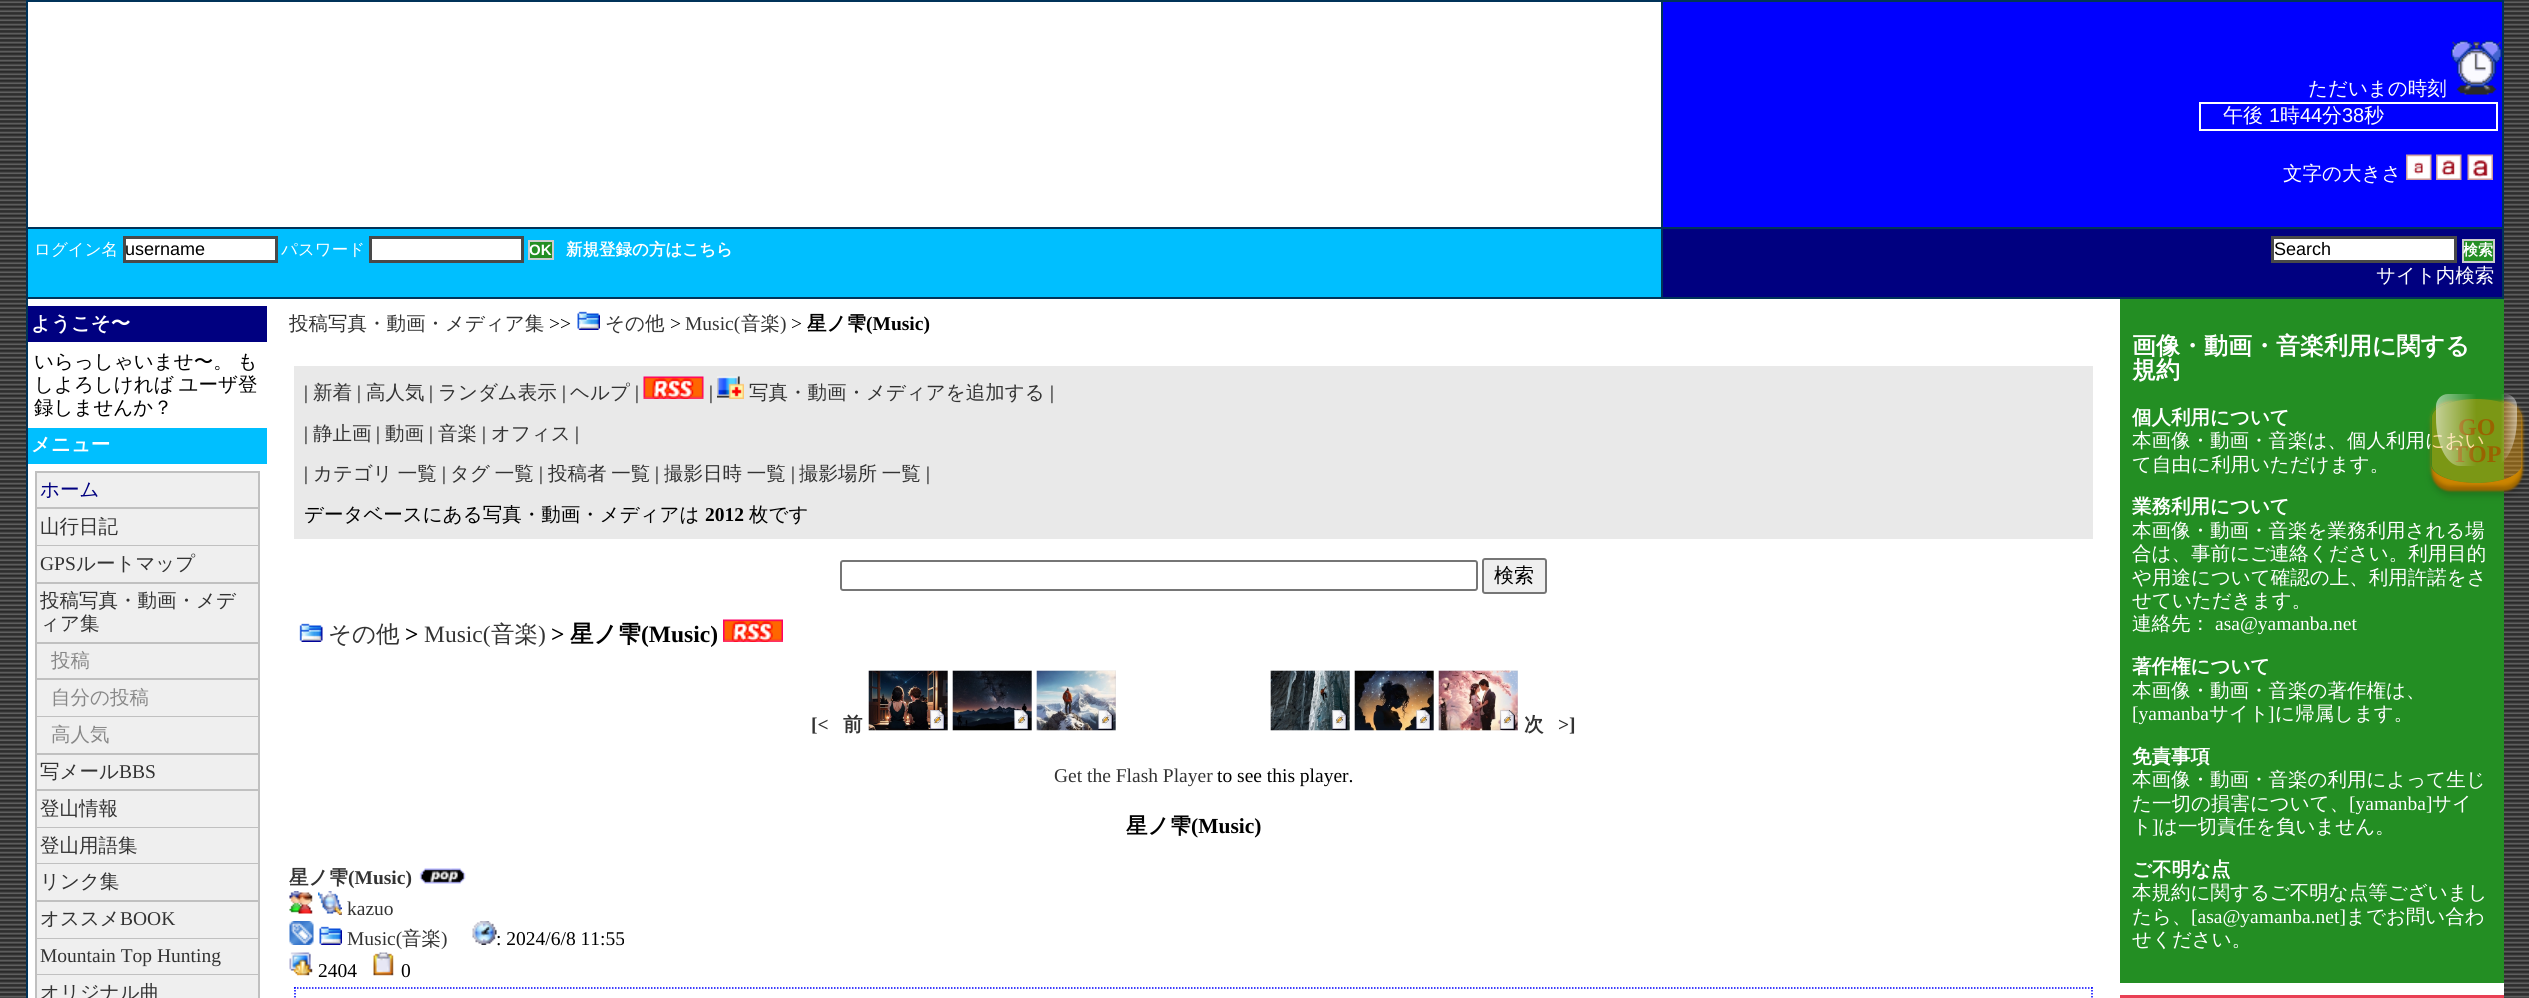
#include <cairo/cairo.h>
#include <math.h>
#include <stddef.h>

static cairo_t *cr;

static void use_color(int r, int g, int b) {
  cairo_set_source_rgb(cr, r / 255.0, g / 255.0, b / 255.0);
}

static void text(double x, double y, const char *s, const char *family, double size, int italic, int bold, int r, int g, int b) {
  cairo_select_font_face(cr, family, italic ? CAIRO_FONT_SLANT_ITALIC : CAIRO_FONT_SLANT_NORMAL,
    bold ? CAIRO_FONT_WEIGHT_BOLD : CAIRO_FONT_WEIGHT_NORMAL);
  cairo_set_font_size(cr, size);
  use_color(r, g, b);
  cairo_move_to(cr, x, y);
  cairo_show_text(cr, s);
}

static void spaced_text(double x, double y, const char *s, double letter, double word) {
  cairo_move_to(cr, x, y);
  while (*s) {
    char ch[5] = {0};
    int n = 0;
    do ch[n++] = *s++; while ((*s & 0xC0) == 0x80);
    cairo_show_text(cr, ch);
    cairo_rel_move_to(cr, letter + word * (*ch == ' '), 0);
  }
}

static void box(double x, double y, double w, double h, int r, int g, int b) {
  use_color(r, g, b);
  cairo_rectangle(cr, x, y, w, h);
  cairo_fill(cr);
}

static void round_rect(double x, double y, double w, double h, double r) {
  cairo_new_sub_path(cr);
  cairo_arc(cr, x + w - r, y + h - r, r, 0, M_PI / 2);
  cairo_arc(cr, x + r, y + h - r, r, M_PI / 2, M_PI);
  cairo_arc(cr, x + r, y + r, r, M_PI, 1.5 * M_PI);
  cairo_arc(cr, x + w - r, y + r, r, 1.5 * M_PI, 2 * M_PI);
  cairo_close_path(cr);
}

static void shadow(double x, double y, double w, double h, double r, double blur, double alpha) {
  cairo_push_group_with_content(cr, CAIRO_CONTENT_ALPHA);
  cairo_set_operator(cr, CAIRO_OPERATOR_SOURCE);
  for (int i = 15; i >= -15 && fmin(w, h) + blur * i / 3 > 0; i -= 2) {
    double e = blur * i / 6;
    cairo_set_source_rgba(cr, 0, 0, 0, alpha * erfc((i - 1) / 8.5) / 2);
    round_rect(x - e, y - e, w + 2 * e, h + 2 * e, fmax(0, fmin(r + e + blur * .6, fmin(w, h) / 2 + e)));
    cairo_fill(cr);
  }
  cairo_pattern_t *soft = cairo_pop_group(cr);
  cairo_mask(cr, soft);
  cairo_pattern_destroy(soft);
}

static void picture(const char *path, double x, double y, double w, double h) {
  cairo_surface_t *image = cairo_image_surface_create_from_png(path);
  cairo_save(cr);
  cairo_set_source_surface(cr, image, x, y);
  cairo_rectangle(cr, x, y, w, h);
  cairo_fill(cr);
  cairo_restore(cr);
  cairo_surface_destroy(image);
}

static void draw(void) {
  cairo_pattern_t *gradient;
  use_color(255, 255, 255);
  cairo_paint(cr);
  picture("img_01.png", 0, 0, 2529, 998);
  box(28, 2, 2476, 996, 255, 255, 255);
  box(1661, 0, 843, 2, 0, 51, 89);
  box(1661, 227, 843, 2, 0, 51, 89);
  box(2502, 227, 2, 72, 0, 51, 89);
  box(1661, 297, 843, 2, 0, 51, 89);
  box(1661, 227, 2, 72, 0, 51, 89);
  box(26, 227, 1636, 2, 0, 51, 89);
  box(1661, 0, 2, 228, 0, 51, 89);
  box(26, 0, 1636, 2, 0, 51, 89);
  box(26, 297, 1636, 2, 0, 51, 89);
  box(26, 227, 2, 771, 0, 51, 89);
  box(26, 0, 2, 228, 0, 51, 89);
  box(1663, 2, 839, 225, 0, 0, 255);
  box(2502, 0, 2, 228, 0, 51, 89);
  picture("img_02.png", 2451, 40, 51, 55);
  cairo_rectangle(cr, 2200, 103, 297, 27);
  use_color(255, 255, 255);
  cairo_stroke(cr);
  picture("img_03.png", 2406, 154, 26, 26);
  picture("img_04.png", 2436, 154, 26, 26);
  picture("img_05.png", 2467, 154, 26, 26);
  box(28, 229, 1633, 68, 0, 191, 255);
  use_color(255, 255, 255);
  cairo_rectangle(cr, 124.5, 237.5, 152, 24);
  cairo_fill_preserve(cr);
  use_color(73, 73, 73);
  cairo_set_line_width(cr, 3);
  cairo_stroke(cr);
  use_color(255, 255, 255);
  cairo_rectangle(cr, 370.5, 237.5, 152, 24);
  cairo_fill_preserve(cr);
  use_color(73, 73, 73);
  cairo_stroke(cr);
  use_color(35, 142, 35);
  cairo_rectangle(cr, 529, 241, 24, 18);
  cairo_fill_preserve(cr);
  use_color(204, 204, 204);
  cairo_set_line_width(cr, 2);
  cairo_stroke(cr);
  box(1663, 229, 839, 68, 0, 0, 128);
  use_color(255, 255, 255);
  cairo_rectangle(cr, 2272.5, 237.5, 183, 24);
  cairo_fill_preserve(cr);
  use_color(73, 73, 73);
  cairo_set_line_width(cr, 3);
  cairo_stroke(cr);
  use_color(35, 142, 35);
  cairo_rectangle(cr, 2463, 240, 31, 22);
  cairo_fill_preserve(cr);
  use_color(204, 204, 204);
  cairo_set_line_width(cr, 2);
  cairo_stroke(cr);
  box(28, 306, 239, 36, 0, 0, 128);
  box(28, 428, 239, 36, 0, 191, 255);
  use_color(239, 239, 239);
  cairo_rectangle(cr, 36, 472, 223, 36);
  cairo_fill_preserve(cr);
  use_color(192, 192, 192);
  cairo_stroke(cr);
  box(37, 509, 221, 36, 239, 239, 239);
  box(258, 509, 2, 489, 192, 192, 192);
  box(35, 545, 225, 1, 192, 192, 192);
  box(35, 509, 2, 37, 192, 192, 192);
  box(37, 546, 221, 36, 239, 239, 239);
  box(35, 582, 225, 2, 192, 192, 192);
  box(35, 546, 2, 38, 192, 192, 192);
  box(37, 584, 221, 58, 239, 239, 239);
  box(35, 642, 225, 2, 192, 192, 192);
  box(35, 584, 2, 60, 192, 192, 192);
  box(37, 644, 221, 34, 239, 239, 239);
  box(35, 678, 225, 2, 192, 192, 192);
  box(35, 644, 2, 36, 192, 192, 192);
  box(37, 680, 221, 36, 239, 239, 239);
  box(35, 716, 225, 1, 192, 192, 192);
  box(35, 680, 2, 37, 192, 192, 192);
  box(37, 717, 221, 36, 239, 239, 239);
  box(35, 753, 225, 2, 192, 192, 192);
  box(35, 717, 2, 38, 192, 192, 192);
  box(37, 755, 221, 34, 239, 239, 239);
  box(35, 789, 225, 2, 192, 192, 192);
  box(35, 755, 2, 36, 192, 192, 192);
  box(37, 791, 221, 36, 239, 239, 239);
  box(35, 827, 225, 1, 192, 192, 192);
  box(35, 791, 2, 37, 192, 192, 192);
  box(37, 828, 221, 35, 239, 239, 239);
  box(35, 863, 225, 1, 192, 192, 192);
  box(35, 828, 2, 36, 192, 192, 192);
  box(37, 864, 221, 36, 239, 239, 239);
  box(35, 900, 225, 2, 192, 192, 192);
  box(35, 864, 2, 38, 192, 192, 192);
  box(37, 902, 221, 36, 239, 239, 239);
  box(35, 938, 225, 1, 192, 192, 192);
  box(35, 902, 2, 37, 192, 192, 192);
  box(37, 939, 221, 35, 239, 239, 239);
  box(35, 974, 225, 1, 192, 192, 192);
  box(35, 939, 2, 59, 192, 192, 192);
  box(37, 975, 221, 23, 239, 239, 239);
  picture("img_06.png", 577, 311, 23, 19);
  box(294, 366, 1799, 173, 233, 233, 233);
  picture("img_07.png", 643, 376, 61, 23);
  picture("img_08.png", 717, 376, 27, 23);
  round_rect(841, 561, 636, 29, 2);
  use_color(118, 118, 118);
  cairo_stroke(cr);
  use_color(239, 239, 239);
  round_rect(1483, 559, 63, 34, 2);
  cairo_fill_preserve(cr);
  use_color(118, 118, 118);
  cairo_stroke(cr);
  picture("img_09.png", 299, 623, 24, 19);
  picture("img_10.png", 723, 619, 60, 23);
  picture("img_11.png", 868, 670, 80, 61);
  picture("img_12.png", 952, 670, 80, 61);
  picture("img_13.png", 1036, 670, 80, 61);
  picture("img_14.png", 1270, 670, 80, 61);
  picture("img_15.png", 1354, 670, 80, 61);
  picture("img_16.png", 1438, 670, 80, 61);
  picture("img_17.png", 419, 868, 47, 16);
  picture("img_18.png", 289, 891, 24, 23);
  picture("img_19.png", 318, 891, 24, 24);
  picture("img_20.png", 289, 921, 25, 24);
  picture("img_06.png", 319, 926, 23, 19);
  picture("img_21.png", 472, 921, 25, 24);
  picture("img_22.png", 289, 952, 24, 24);
  picture("img_23.png", 373, 952, 21, 24);
  cairo_new_path(cr);
  cairo_move_to(cr, 294, 988);
  cairo_line_to(cr, 2092.5, 988);
  use_color(0, 0, 255);
  cairo_set_line_width(cr, 1.5);
  cairo_set_dash(cr, (double[]){1.5, 1.5}, 2, 0);
  cairo_stroke(cr);
  cairo_new_path(cr);
  cairo_move_to(cr, 2092, 987);
  cairo_line_to(cr, 2092, 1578);
  cairo_stroke(cr);
  cairo_new_path(cr);
  cairo_move_to(cr, 295, 987);
  cairo_line_to(cr, 295, 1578);
  cairo_stroke(cr);
  box(2120, 299, 384, 684, 35, 142, 35);
  box(2120, 995, 384, 3, 233, 63, 84);
  cairo_save(cr);
  cairo_set_fill_rule(cr, CAIRO_FILL_RULE_EVEN_ODD);
  cairo_new_path(cr);
  cairo_move_to(cr, 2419, 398);
  cairo_line_to(cr, 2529, 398);
  cairo_line_to(cr, 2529, 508);
  cairo_line_to(cr, 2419, 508);
  cairo_close_path(cr);
  cairo_move_to(cr, 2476.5, 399);
  cairo_curve_to(cr, 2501.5, 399, 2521.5, 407, 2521.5, 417);
  cairo_line_to(cr, 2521.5, 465);
  cairo_curve_to(cr, 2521.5, 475, 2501.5, 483, 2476.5, 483);
  cairo_curve_to(cr, 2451.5, 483, 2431.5, 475, 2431.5, 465);
  cairo_line_to(cr, 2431.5, 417);
  cairo_curve_to(cr, 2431.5, 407, 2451.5, 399, 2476.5, 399);
  cairo_close_path(cr);
  cairo_clip(cr);
  use_color(0, 0, 0);
  shadow(2432, 411, 90, 84, 18, 4, 0.2);
  cairo_restore(cr);
  cairo_save(cr);
  cairo_set_fill_rule(cr, CAIRO_FILL_RULE_EVEN_ODD);
  cairo_new_path(cr);
  cairo_move_to(cr, 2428, 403);
  cairo_line_to(cr, 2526, 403);
  cairo_line_to(cr, 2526, 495);
  cairo_line_to(cr, 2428, 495);
  cairo_close_path(cr);
  cairo_move_to(cr, 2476.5, 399);
  cairo_curve_to(cr, 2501.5, 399, 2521.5, 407, 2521.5, 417);
  cairo_line_to(cr, 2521.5, 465);
  cairo_curve_to(cr, 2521.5, 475, 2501.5, 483, 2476.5, 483);
  cairo_curve_to(cr, 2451.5, 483, 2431.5, 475, 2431.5, 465);
  cairo_line_to(cr, 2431.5, 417);
  cairo_curve_to(cr, 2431.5, 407, 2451.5, 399, 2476.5, 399);
  cairo_close_path(cr);
  cairo_clip(cr);
  use_color(153, 99, 0);
  shadow(2432, 407, 90, 84, 18, 1, 1);
  cairo_restore(cr);
  cairo_save(cr);
  cairo_set_fill_rule(cr, CAIRO_FILL_RULE_EVEN_ODD);
  cairo_new_path(cr);
  cairo_move_to(cr, 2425, 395);
  cairo_line_to(cr, 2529, 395);
  cairo_line_to(cr, 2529, 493);
  cairo_line_to(cr, 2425, 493);
  cairo_close_path(cr);
  cairo_move_to(cr, 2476.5, 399);
  cairo_curve_to(cr, 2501.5, 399, 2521.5, 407, 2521.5, 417);
  cairo_line_to(cr, 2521.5, 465);
  cairo_curve_to(cr, 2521.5, 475, 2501.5, 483, 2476.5, 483);
  cairo_curve_to(cr, 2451.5, 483, 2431.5, 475, 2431.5, 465);
  cairo_line_to(cr, 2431.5, 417);
  cairo_curve_to(cr, 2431.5, 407, 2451.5, 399, 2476.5, 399);
  cairo_close_path(cr);
  cairo_clip(cr);
  use_color(204, 133, 0);
  shadow(2432, 402, 90, 84, 18, 2, 1);
  cairo_restore(cr);
  text(2308, 95, "ただいまの時刻", "WenQuanYi Zen Hei Medium", 19.5, 0, 0, 255, 255, 255);
  text(2223, 122, "午後", "WenQuanYi Zen Hei Medium", 20, 0, 0, 255, 255, 255);
  text(2269, 122, "1", "Liberation Sans", 20, 0, 0, 255, 255, 255);
  text(2280, 122, "時", "WenQuanYi Zen Hei Medium", 20, 0, 0, 255, 255, 255);
  text(2300, 122, "44", "Liberation Sans", 20, 0, 0, 255, 255, 255);
  text(2322, 122, "分", "WenQuanYi Zen Hei Medium", 20, 0, 0, 255, 255, 255);
  text(2342, 122, "38", "Liberation Sans", 20, 0, 0, 255, 255, 255);
  text(2364, 122, "秒", "WenQuanYi Zen Hei Medium", 20, 0, 0, 255, 255, 255);
  text(2283, 180, "文字の大きさ", "WenQuanYi Zen Hei Medium", 19.5, 0, 0, 255, 255, 255);
  text(34, 255, "ログイン名", "WenQuanYi Zen Hei Medium", 16.5, 0, 0, 255, 255, 255);
  text(125, 255, "username", "Liberation Sans", 18, 0, 0, 0, 0, 0);
  text(281, 255, "パスワード", "WenQuanYi Zen Hei Medium", 16.5, 0, 0, 255, 255, 255);
  text(529, 255, "OK", "Liberation Sans", 15, 0, 1, 255, 255, 255);
  text(566, 255, "新規登録の方はこちら", "WenQuanYi Zen Hei", 16.5, 0, 1, 255, 255, 255);
  text(2274, 255, "Search", "Liberation Sans", 18, 0, 0, 0, 0, 0);
  text(2463, 255, "検索", "WenQuanYi Zen Hei", 15, 0, 1, 255, 255, 255);
  text(2376, 282, "サイト内検索", "WenQuanYi Zen Hei Medium", 19.5, 0, 0, 255, 255, 255);
  text(31, 330, "ようこそ〜", "WenQuanYi Zen Hei", 19.5, 0, 1, 255, 255, 255);
  cairo_select_font_face(cr, "WenQuanYi Zen Hei Medium", CAIRO_FONT_SLANT_NORMAL, CAIRO_FONT_WEIGHT_NORMAL);
  use_color(0, 0, 0);
  spaced_text(34, 368, "いらっしゃいませ〜。 も", 0, -1);
  spaced_text(34, 391, "しよろしければ ユーザ登", 0, -1);
  text(34, 414, "録しませんか？", "WenQuanYi Zen Hei Medium", 19.5, 0, 0, 0, 0, 0);
  text(31, 451, "メニュー", "WenQuanYi Zen Hei", 19.5, 0, 1, 255, 255, 255);
  text(40, 496, "ホーム", "WenQuanYi Zen Hei Medium", 19.5, 0, 0, 0, 0, 128);
  text(40, 533, "山行日記", "WenQuanYi Zen Hei Medium", 19.5, 0, 0, 51, 51, 51);
  text(40, 570, "GPS", "Liberation Serif", 19.5, 0, 0, 51, 51, 51);
  text(76, 570, "ルートマップ", "WenQuanYi Zen Hei Medium", 19.5, 0, 0, 51, 51, 51);
  text(40, 607, "投稿写真・動画・メデ", "WenQuanYi Zen Hei Medium", 19.5, 0, 0, 51, 51, 51);
  text(40, 630, "ィア集", "WenQuanYi Zen Hei Medium", 19.5, 0, 0, 51, 51, 51);
  text(51, 667, "投稿", "WenQuanYi Zen Hei Medium", 19.5, 0, 0, 136, 136, 136);
  text(51, 704, "自分の投稿", "WenQuanYi Zen Hei Medium", 19.5, 0, 0, 136, 136, 136);
  text(51, 741, "高人気", "WenQuanYi Zen Hei Medium", 19.5, 0, 0, 136, 136, 136);
  text(40, 778, "写メール", "WenQuanYi Zen Hei Medium", 19.5, 0, 0, 51, 51, 51);
  text(119, 778, "BBS", "Liberation Serif", 19.5, 0, 0, 51, 51, 51);
  text(40, 815, "登山情報", "WenQuanYi Zen Hei Medium", 19.5, 0, 0, 51, 51, 51);
  text(40, 852, "登山用語集", "WenQuanYi Zen Hei Medium", 19.5, 0, 0, 51, 51, 51);
  text(40, 888, "リンク集", "WenQuanYi Zen Hei Medium", 19.5, 0, 0, 51, 51, 51);
  text(40, 925, "オススメ", "WenQuanYi Zen Hei Medium", 19.5, 0, 0, 51, 51, 51);
  text(120, 925, "BOOK", "Liberation Serif", 19.5, 0, 0, 51, 51, 51);
  text(40, 962, "Mountain Top Hunting", "Liberation Serif", 19.5, 0, 0, 51, 51, 51);
  text(40, 999, "オリジナル曲", "WenQuanYi Zen Hei Medium", 19.5, 0, 0, 51, 51, 51);
  text(289, 330, "投稿写真・動画・メディア集", "WenQuanYi Zen Hei Medium", 19.5, 0, 0, 51, 51, 51);
  text(549, 330, ">>", "Liberation Serif", 19.5, 0, 0, 0, 0, 0);
  text(605, 330, "その他", "WenQuanYi Zen Hei Medium", 19.5, 0, 0, 51, 51, 51);
  text(670, 330, ">", "Liberation Serif", 19.5, 0, 0, 0, 0, 0);
  text(685, 330, "Music(", "Liberation Serif", 19.5, 0, 0, 51, 51, 51);
  text(741, 330, "音楽", "WenQuanYi Zen Hei Medium", 19.5, 0, 0, 51, 51, 51);
  text(780, 330, ")", "Liberation Serif", 19.5, 0, 0, 51, 51, 51);
  text(791, 330, ">", "Liberation Serif", 19.5, 0, 0, 0, 0, 0);
  text(807, 330, "星ノ雫", "WenQuanYi Zen Hei", 19.5, 0, 1, 0, 0, 0);
  text(866, 330, "(Music)", "Liberation Serif", 19.5, 0, 1, 0, 0, 0);
  text(304, 399, "|", "Liberation Serif", 19.5, 0, 0, 0, 0, 0);
  text(313, 399, "新着", "WenQuanYi Zen Hei Medium", 19.5, 0, 0, 51, 51, 51);
  text(357, 399, "|", "Liberation Serif", 19.5, 0, 0, 0, 0, 0);
  text(366, 399, "高人気", "WenQuanYi Zen Hei Medium", 19.5, 0, 0, 51, 51, 51);
  text(429, 399, "|", "Liberation Serif", 19.5, 0, 0, 0, 0, 0);
  text(438, 399, "ランダム表示", "WenQuanYi Zen Hei Medium", 19.5, 0, 0, 51, 51, 51);
  text(562, 399, "|", "Liberation Serif", 19.5, 0, 0, 0, 0, 0);
  text(570, 399, "ヘルプ", "WenQuanYi Zen Hei Medium", 19.5, 0, 0, 51, 51, 51);
  text(635, 399, "|", "Liberation Serif", 19.5, 0, 0, 0, 0, 0);
  text(709, 399, "|", "Liberation Serif", 19.5, 0, 0, 0, 0, 0);
  text(749, 399, "写真・動画・メディアを追加する", "WenQuanYi Zen Hei Medium", 19.5, 0, 0, 51, 51, 51);
  text(1050, 399, "|", "Liberation Serif", 19.5, 0, 0, 0, 0, 0);
  text(304, 440, "|", "Liberation Serif", 19.5, 0, 0, 0, 0, 0);
  text(313, 440, "静止画", "WenQuanYi Zen Hei Medium", 19.5, 0, 0, 51, 51, 51);
  text(376, 440, "|", "Liberation Serif", 19.5, 0, 0, 0, 0, 0);
  text(385, 440, "動画", "WenQuanYi Zen Hei Medium", 19.5, 0, 0, 51, 51, 51);
  text(429, 440, "|", "Liberation Serif", 19.5, 0, 0, 0, 0, 0);
  text(438, 440, "音楽", "WenQuanYi Zen Hei Medium", 19.5, 0, 0, 51, 51, 51);
  text(482, 440, "|", "Liberation Serif", 19.5, 0, 0, 0, 0, 0);
  text(491, 440, "オフィス", "WenQuanYi Zen Hei Medium", 19.5, 0, 0, 51, 51, 51);
  text(575, 440, "|", "Liberation Serif", 19.5, 0, 0, 0, 0, 0);
  text(304, 480, "|", "Liberation Serif", 19.5, 0, 0, 0, 0, 0);
  cairo_select_font_face(cr, "WenQuanYi Zen Hei Medium", CAIRO_FONT_SLANT_NORMAL, CAIRO_FONT_WEIGHT_NORMAL);
  use_color(51, 51, 51);
  spaced_text(313, 480, "カテゴリ 一覧", 0, -1);
  text(442, 480, "|", "Liberation Serif", 19.5, 0, 0, 0, 0, 0);
  cairo_select_font_face(cr, "WenQuanYi Zen Hei Medium", CAIRO_FONT_SLANT_NORMAL, CAIRO_FONT_WEIGHT_NORMAL);
  use_color(51, 51, 51);
  spaced_text(450, 480, "タグ 一覧", 0, -1);
  text(539, 480, "|", "Liberation Serif", 19.5, 0, 0, 0, 0, 0);
  cairo_select_font_face(cr, "WenQuanYi Zen Hei Medium", CAIRO_FONT_SLANT_NORMAL, CAIRO_FONT_WEIGHT_NORMAL);
  use_color(51, 51, 51);
  spaced_text(548, 480, "投稿者 一覧", 0, -1);
  text(655, 480, "|", "Liberation Serif", 19.5, 0, 0, 0, 0, 0);
  cairo_select_font_face(cr, "WenQuanYi Zen Hei Medium", CAIRO_FONT_SLANT_NORMAL, CAIRO_FONT_WEIGHT_NORMAL);
  use_color(51, 51, 51);
  spaced_text(664, 480, "撮影日時 一覧", 0, -1);
  text(791, 480, "|", "Liberation Serif", 19.5, 0, 0, 0, 0, 0);
  cairo_select_font_face(cr, "WenQuanYi Zen Hei Medium", CAIRO_FONT_SLANT_NORMAL, CAIRO_FONT_WEIGHT_NORMAL);
  use_color(51, 51, 51);
  spaced_text(799, 480, "撮影場所 一覧", 0, -1);
  text(926, 480, "|", "Liberation Serif", 19.5, 0, 0, 0, 0, 0);
  text(304, 521, "データベースにある写真・動画・メディアは", "WenQuanYi Zen Hei Medium", 19.5, 0, 0, 0, 0, 0);
  text(705, 521, "2012", "Liberation Serif", 19.5, 0, 1, 0, 0, 0);
  text(749, 521, "枚です", "WenQuanYi Zen Hei Medium", 19.5, 0, 0, 0, 0, 0);
  text(1494, 582, "検索", "WenQuanYi Zen Hei Medium", 20, 0, 0, 0, 0, 0);
  text(328, 642, "その他", "WenQuanYi Zen Hei Medium", 23.5, 0, 0, 51, 51, 51);
  text(405, 642, ">", "Liberation Serif", 23.5, 0, 1, 0, 0, 0);
  text(424, 642, "Music(", "Liberation Serif", 23.5, 0, 0, 51, 51, 51);
  text(491, 642, "音楽", "WenQuanYi Zen Hei Medium", 23.5, 0, 0, 51, 51, 51);
  text(538, 642, ")", "Liberation Serif", 23.5, 0, 0, 51, 51, 51);
  text(551, 642, ">", "Liberation Serif", 23.5, 0, 1, 0, 0, 0);
  text(570, 642, "星ノ雫", "WenQuanYi Zen Hei", 23.5, 0, 1, 0, 0, 0);
  text(641, 642, "(Music)", "Liberation Serif", 23.5, 0, 1, 0, 0, 0);
  text(811, 731, "[<", "Liberation Serif", 19.5, 0, 1, 51, 51, 51);
  text(843, 731, "前", "WenQuanYi Zen Hei", 19.5, 0, 1, 51, 51, 51);
  text(1524, 731, "次", "WenQuanYi Zen Hei", 19.5, 0, 1, 51, 51, 51);
  text(1558, 731, ">]", "Liberation Serif", 19.5, 0, 1, 51, 51, 51);
  text(1054, 782, "Get the Flash Player", "Liberation Serif", 19.5, 0, 0, 51, 51, 51);
  text(1217, 782, "to see this player.", "Liberation Serif", 19.5, 0, 0, 0, 0, 0);
  text(1126, 833, "星ノ雫", "WenQuanYi Zen Hei", 21.5, 0, 1, 0, 0, 0);
  text(1191, 833, "(Music)", "Liberation Serif", 21.5, 0, 1, 0, 0, 0);
  text(289, 884, "星ノ雫", "WenQuanYi Zen Hei", 19.5, 0, 1, 51, 51, 51);
  text(348, 884, "(Music)", "Liberation Serif", 19.5, 0, 1, 51, 51, 51);
  text(347, 915, "kazuo", "Liberation Serif", 19.5, 0, 0, 51, 51, 51);
  text(347, 945, "Music(", "Liberation Serif", 19.5, 0, 0, 51, 51, 51);
  text(402, 945, "音楽", "WenQuanYi Zen Hei Medium", 19.5, 0, 0, 51, 51, 51);
  text(441, 945, ")", "Liberation Serif", 19.5, 0, 0, 51, 51, 51);
  text(496, 945, ": 2024/6/8 11:55", "Liberation Serif", 19.5, 0, 0, 0, 0, 0);
  text(318, 977, "2404", "Liberation Serif", 19.5, 0, 0, 0, 0, 0);
  text(401, 977, "0", "Liberation Serif", 19.5, 0, 0, 0, 0, 0);
  text(2132, 354, "画像・動画・音楽利用に関する", "WenQuanYi Zen Hei", 24, 0, 1, 255, 255, 255);
  text(2132, 378, "規約", "WenQuanYi Zen Hei", 24, 0, 1, 255, 255, 255);
  text(2132, 424, "個人利用について", "WenQuanYi Zen Hei", 19.5, 0, 1, 255, 255, 255);
  text(2132, 447, "本画像・動画・音楽は、個人利用におい", "WenQuanYi Zen Hei Medium", 19.5, 0, 0, 255, 255, 255);
  text(2132, 471, "て自由に利用いただけます。", "WenQuanYi Zen Hei Medium", 19.5, 0, 0, 255, 255, 255);
  text(2132, 513, "業務利用について", "WenQuanYi Zen Hei", 19.5, 0, 1, 255, 255, 255);
  text(2132, 537, "本画像・動画・音楽を業務利用される場", "WenQuanYi Zen Hei Medium", 19.5, 0, 0, 255, 255, 255);
  text(2132, 560, "合は、事前にご連絡ください。利用目的", "WenQuanYi Zen Hei Medium", 19.5, 0, 0, 255, 255, 255);
  text(2132, 584, "や用途について確認の上、利用許諾をさ", "WenQuanYi Zen Hei Medium", 19.5, 0, 0, 255, 255, 255);
  text(2132, 607, "せていただきます。", "WenQuanYi Zen Hei Medium", 19.5, 0, 0, 255, 255, 255);
  text(2132, 630, "連絡先：", "WenQuanYi Zen Hei Medium", 19.5, 0, 0, 255, 255, 255);
  text(2215, 630, "asa@yamanba.net", "Liberation Serif", 19.5, 0, 0, 255, 255, 255);
  text(2132, 673, "著作権について", "WenQuanYi Zen Hei", 19.5, 0, 1, 255, 255, 255);
  text(2132, 697, "本画像・動画・音楽の著作権は、", "WenQuanYi Zen Hei Medium", 19.5, 0, 0, 255, 255, 255);
  text(2132, 720, "[yamanba", "Liberation Serif", 19.5, 0, 0, 255, 255, 255);
  text(2209, 720, "サイト", "WenQuanYi Zen Hei Medium", 19.5, 0, 0, 255, 255, 255);
  text(2268, 720, "]", "Liberation Serif", 19.5, 0, 0, 255, 255, 255);
  text(2275, 720, "に帰属します。", "WenQuanYi Zen Hei Medium", 19.5, 0, 0, 255, 255, 255);
  text(2132, 763, "免責事項", "WenQuanYi Zen Hei", 19.5, 0, 1, 255, 255, 255);
  text(2132, 786, "本画像・動画・音楽の利用によって生じ", "WenQuanYi Zen Hei Medium", 19.5, 0, 0, 255, 255, 255);
  text(2132, 810, "た一切の損害について、", "WenQuanYi Zen Hei Medium", 19.5, 0, 0, 255, 255, 255);
  text(2349, 810, "[yamanba]", "Liberation Serif", 19.5, 0, 0, 255, 255, 255);
  text(2432, 810, "サイ", "WenQuanYi Zen Hei Medium", 19.5, 0, 0, 255, 255, 255);
  text(2132, 833, "ト", "WenQuanYi Zen Hei Medium", 19.5, 0, 0, 255, 255, 255);
  text(2152, 833, "]", "Liberation Serif", 19.5, 0, 0, 255, 255, 255);
  text(2158, 833, "は一切責任を負いません。", "WenQuanYi Zen Hei Medium", 19.5, 0, 0, 255, 255, 255);
  text(2132, 876, "ご不明な点", "WenQuanYi Zen Hei", 19.5, 0, 1, 255, 255, 255);
  text(2132, 899, "本規約に関するご不明な点等ございまし", "WenQuanYi Zen Hei Medium", 19.5, 0, 0, 255, 255, 255);
  text(2132, 923, "たら、", "WenQuanYi Zen Hei Medium", 19.5, 0, 0, 255, 255, 255);
  text(2191, 923, "[asa@yamanba.net]", "Liberation Serif", 19.5, 0, 0, 255, 255, 255);
  text(2346, 923, "までお問い合わ", "WenQuanYi Zen Hei Medium", 19.5, 0, 0, 255, 255, 255);
  text(2132, 946, "せください。", "WenQuanYi Zen Hei Medium", 19.5, 0, 0, 255, 255, 255);
  cairo_set_source_rgba(cr, 1, 0.651, 0, 0.4);
  cairo_new_path(cr);
  cairo_move_to(cr, 2476, 399);
  cairo_curve_to(cr, 2501, 399, 2522, 407, 2522, 417);
  cairo_line_to(cr, 2522, 465);
  cairo_curve_to(cr, 2522, 475, 2501, 483, 2476, 483);
  cairo_curve_to(cr, 2452, 483, 2432, 475, 2432, 465);
  cairo_line_to(cr, 2432, 417);
  cairo_curve_to(cr, 2432, 407, 2452, 399, 2476, 399);
  cairo_close_path(cr);
  cairo_fill(cr);
  text(2458, 435, "GO", "Liberation Serif", 24, 0, 1, 153, 99, 0);
  text(2452, 462, "TOP", "Liberation Serif", 24, 0, 1, 153, 99, 0);
  gradient = cairo_pattern_create_linear(2436, 395, 2517, 395);
  cairo_pattern_add_color_stop_rgba(gradient, 0, 1, 1, 1, 0.55);
  cairo_pattern_add_color_stop_rgba(gradient, 0.5, 1, 1, 1, 0);
  cairo_pattern_add_color_stop_rgba(gradient, 0.8, 1, 1, 1, 0);
  cairo_pattern_add_color_stop_rgba(gradient, 1, 1, 1, 1, 0.5);
  cairo_set_source(cr, gradient);
  cairo_pattern_destroy(gradient);
  cairo_new_path(cr);
  cairo_move_to(cr, 2448, 394);
  cairo_line_to(cr, 2505, 394);
  cairo_curve_to(cr, 2512, 394, 2517, 400, 2517, 406);
  cairo_line_to(cr, 2517, 418);
  cairo_curve_to(cr, 2517, 445, 2506, 466, 2493, 466);
  cairo_line_to(cr, 2460, 466);
  cairo_curve_to(cr, 2447, 466, 2436, 445, 2436, 418);
  cairo_line_to(cr, 2436, 406);
  cairo_curve_to(cr, 2436, 400, 2441, 394, 2448, 394);
  cairo_close_path(cr);
  cairo_fill(cr);
}

int main(void) {
  cairo_surface_t *surface = cairo_image_surface_create(CAIRO_FORMAT_RGB24, 2529, 998);
  cr = cairo_create(surface);
  cairo_font_options_t *options = cairo_font_options_create();
  cairo_font_options_set_hint_metrics(options, CAIRO_HINT_METRICS_OFF);
  cairo_font_options_set_hint_style(options, CAIRO_HINT_STYLE_NONE);
  cairo_set_font_options(cr, options);
  cairo_set_miter_limit(cr, 4);
  draw();
  cairo_surface_write_to_png(surface, "out.png");
  cairo_font_options_destroy(options);
  cairo_destroy(cr);
  cairo_surface_destroy(surface);
  return 0;
}
